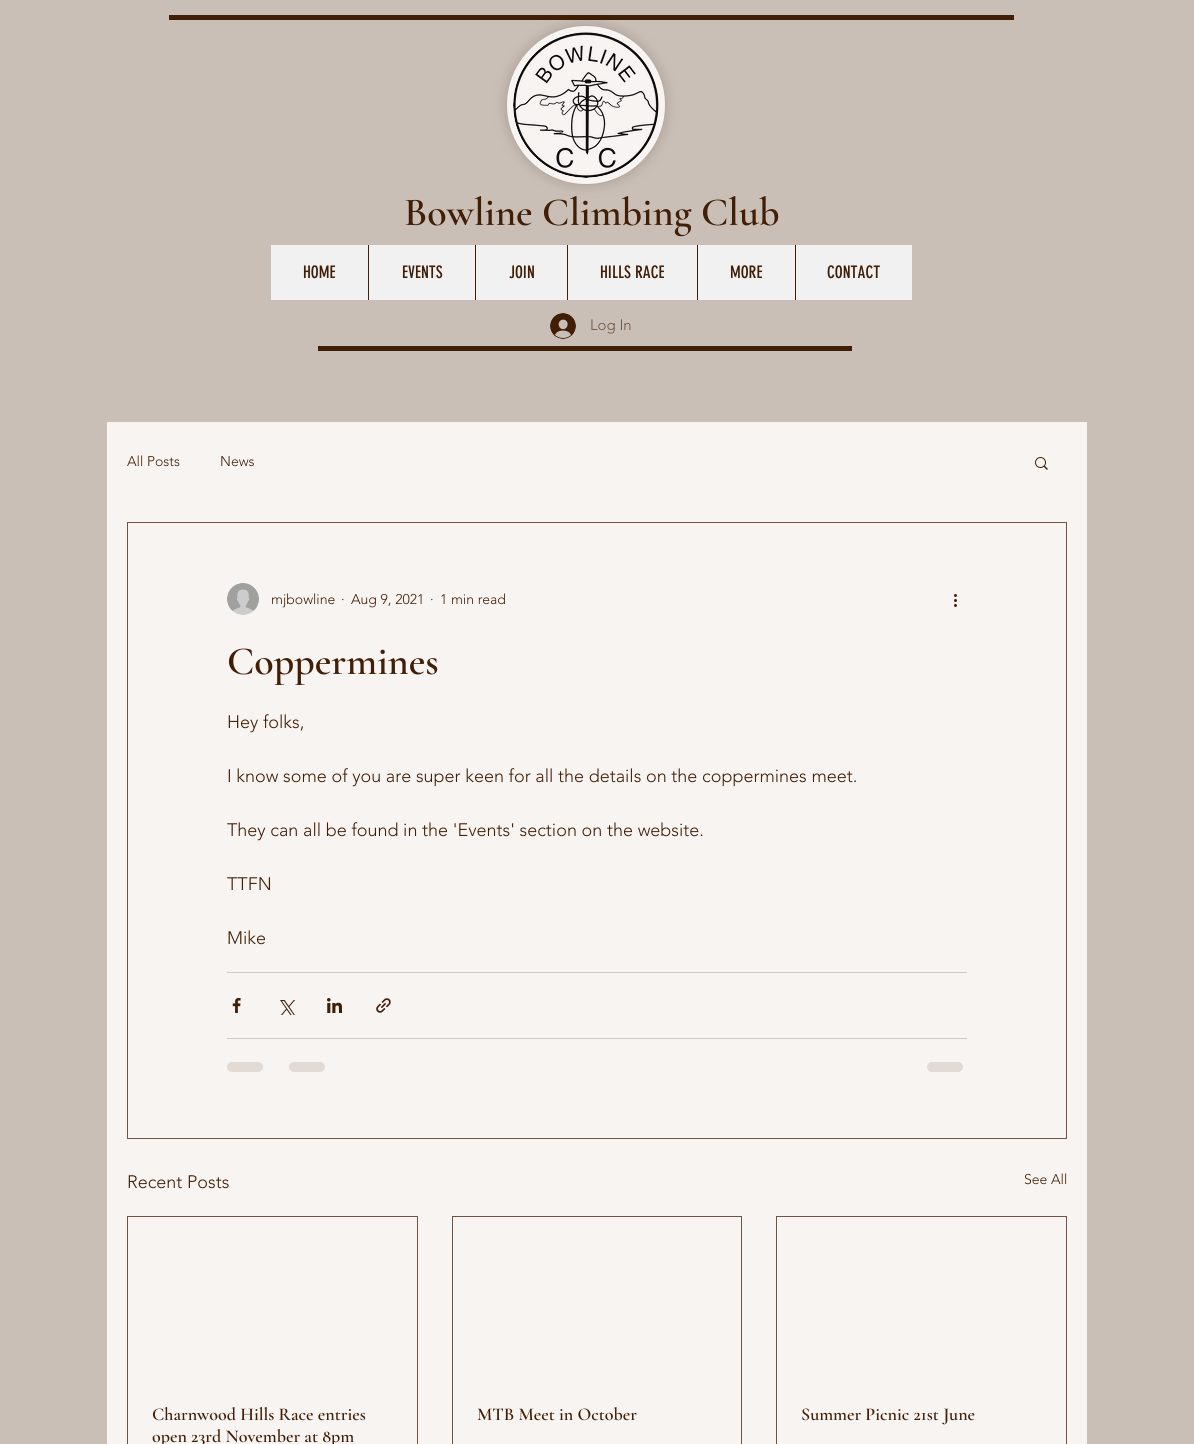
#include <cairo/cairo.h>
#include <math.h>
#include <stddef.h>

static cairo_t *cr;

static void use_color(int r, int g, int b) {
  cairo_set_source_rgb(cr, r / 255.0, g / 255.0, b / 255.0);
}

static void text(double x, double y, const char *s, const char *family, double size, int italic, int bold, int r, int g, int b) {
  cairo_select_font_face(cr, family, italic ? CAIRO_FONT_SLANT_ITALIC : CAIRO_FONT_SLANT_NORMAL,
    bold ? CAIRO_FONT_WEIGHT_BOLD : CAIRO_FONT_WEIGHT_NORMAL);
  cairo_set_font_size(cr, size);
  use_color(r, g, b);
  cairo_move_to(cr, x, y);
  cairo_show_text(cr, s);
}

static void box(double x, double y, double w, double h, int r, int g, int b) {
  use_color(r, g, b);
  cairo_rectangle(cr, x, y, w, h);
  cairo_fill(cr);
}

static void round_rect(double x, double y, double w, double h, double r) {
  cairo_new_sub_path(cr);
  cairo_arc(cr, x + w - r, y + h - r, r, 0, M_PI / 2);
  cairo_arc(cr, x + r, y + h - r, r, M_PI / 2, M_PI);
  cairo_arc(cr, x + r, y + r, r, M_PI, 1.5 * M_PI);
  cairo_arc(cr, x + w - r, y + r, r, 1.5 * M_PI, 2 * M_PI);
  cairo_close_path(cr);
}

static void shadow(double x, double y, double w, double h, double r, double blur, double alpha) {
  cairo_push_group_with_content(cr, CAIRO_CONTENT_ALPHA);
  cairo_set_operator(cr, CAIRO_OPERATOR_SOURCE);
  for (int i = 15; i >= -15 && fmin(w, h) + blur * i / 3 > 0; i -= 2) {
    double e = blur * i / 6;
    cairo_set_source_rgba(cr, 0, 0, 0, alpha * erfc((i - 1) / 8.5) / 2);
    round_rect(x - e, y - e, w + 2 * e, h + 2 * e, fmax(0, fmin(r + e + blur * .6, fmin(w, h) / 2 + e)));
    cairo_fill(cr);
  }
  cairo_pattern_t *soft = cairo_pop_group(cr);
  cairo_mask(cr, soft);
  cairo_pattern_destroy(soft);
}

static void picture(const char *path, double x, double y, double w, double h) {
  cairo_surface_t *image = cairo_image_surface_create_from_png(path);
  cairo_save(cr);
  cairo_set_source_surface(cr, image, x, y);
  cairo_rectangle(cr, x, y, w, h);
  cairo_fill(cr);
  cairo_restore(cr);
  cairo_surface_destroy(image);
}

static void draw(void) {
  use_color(202, 191, 182);
  cairo_paint(cr);
  box(169, 15, 845, 5, 65, 30, 6);
  use_color(0, 0, 0);
  shadow(507, 26, 158, 158, 79, 7, 0.2);
  use_color(248, 244, 241);
  cairo_arc(cr, 586, 105, 76, 0, 2 * M_PI);
  cairo_fill_preserve(cr);
  cairo_set_line_width(cr, 6);
  cairo_stroke(cr);
  picture("img_01.png", 513, 32, 146, 146);
  box(271, 245, 641, 55, 241, 241, 241);
  box(368, 245, 1, 55, 65, 30, 6);
  box(475, 245, 1, 55, 65, 30, 6);
  box(567, 245, 1, 55, 65, 30, 6);
  box(697, 245, 1, 55, 65, 30, 6);
  box(795, 245, 1, 55, 65, 30, 6);
  picture("img_02.png", 550, 313, 26, 26);
  box(318, 346, 534, 5, 65, 30, 6);
  box(107, 422, 980, 1022, 248, 244, 241);
  picture("img_03.png", 1035, 457, 13, 13);
  cairo_rectangle(cr, 127.5, 522.5, 939, 616);
  use_color(111, 84, 65);
  cairo_set_line_width(cr, 1);
  cairo_stroke(cr);
  picture("img_04.png", 227, 583, 32, 32);
  picture("img_05.png", 954, 594, 3, 13);
  box(227, 972, 740, 1, 211, 201, 194);
  picture("img_06.png", 232, 998, 9, 15);
  picture("img_07.png", 280, 1000, 15, 15);
  picture("img_08.png", 327, 998, 15, 15);
  picture("img_09.png", 376, 998, 15, 15);
  box(227, 1038, 740, 1, 211, 201, 194);
  use_color(226, 218, 213);
  round_rect(227, 1062, 36, 10, 5);
  cairo_fill(cr);
  round_rect(289, 1062, 36, 10, 5);
  cairo_fill(cr);
  round_rect(927, 1062, 36, 10, 5);
  cairo_fill(cr);
  cairo_rectangle(cr, 127.5, 1216.5, 290, 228);
  use_color(111, 84, 65);
  cairo_stroke(cr);
  cairo_rectangle(cr, 452.5, 1216.5, 289, 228);
  cairo_stroke(cr);
  cairo_rectangle(cr, 776.5, 1216.5, 290, 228);
  cairo_stroke(cr);
  text(404, 225, "Bowline Climbing Club", "Cormorant Garamond SemiBold", 40, 0, 0, 65, 30, 6);
  text(303, 278, "HOME", "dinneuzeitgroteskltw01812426", 17, 0, 0, 65, 30, 6);
  text(402, 278, "EVENTS", "dinneuzeitgroteskltw01812426", 17, 0, 0, 65, 30, 6);
  text(509, 278, "JOIN", "dinneuzeitgroteskltw01812426", 17, 0, 0, 65, 30, 6);
  text(600, 278, "HILLS RACE", "dinneuzeitgroteskltw01812426", 17, 0, 0, 65, 30, 6);
  text(730, 278, "MORE", "dinneuzeitgroteskltw01812426", 17, 0, 0, 65, 30, 6);
  text(827, 278, "CONTACT", "dinneuzeitgroteskltw01812426", 17, 0, 0, 65, 30, 6);
  text(590, 330, "Log In", "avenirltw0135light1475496 Light", 15, 0, 0, 111, 84, 65);
  text(127, 466, "All Posts", "avenirltw0135light1475496 Light", 14, 0, 0, 65, 30, 6);
  text(220, 466, "News", "avenirltw0135light1475496 Light", 14, 0, 0, 65, 30, 6);
  text(271, 604, "mjbowline", "avenirltw0135light1475496 Light", 14, 0, 0, 65, 30, 6);
  text(341, 604, "·", "avenirltw0135light1475496 Light", 14, 0, 0, 65, 30, 6);
  text(351, 604, "Aug 9, 2021", "avenirltw0135light1475496 Light", 14, 0, 0, 65, 30, 6);
  text(430, 604, "·", "avenirltw0135light1475496 Light", 14, 0, 0, 65, 30, 6);
  text(440, 604, "1 min read", "avenirltw0135light1475496 Light", 14, 0, 0, 65, 30, 6);
  text(227, 674, "Coppermines", "Cormorant Garamond SemiBold", 40, 0, 0, 65, 30, 6);
  text(227, 728, "Hey folks,", "avenirltw0135light1475496 Light", 18, 0, 0, 65, 30, 6);
  text(227, 782, "I know some of you are super keen for all the details on the coppermines meet.", "avenirltw0135light1475496 Light", 18, 0, 0, 65, 30, 6);
  text(227, 836, "They can all be found in the 'Events' section on the website.", "avenirltw0135light1475496 Light", 18, 0, 0, 65, 30, 6);
  text(227, 890, "TTFN", "avenirltw0135light1475496 Light", 18, 0, 0, 65, 30, 6);
  text(227, 944, "Mike", "avenirltw0135light1475496 Light", 18, 0, 0, 65, 30, 6);
  text(127, 1188, "Recent Posts", "avenirltw0135light1475496 Light", 18, 0, 0, 65, 30, 6);
  text(1024, 1184, "See All", "avenirltw0135light1475496 Light", 14, 0, 0, 65, 30, 6);
  text(152, 1420, "Charnwood Hills Race entries", "Cormorant Garamond SemiBold", 18, 0, 0, 65, 30, 6);
  text(152, 1442, "open 23rd November at 8pm", "Cormorant Garamond SemiBold", 18, 0, 0, 65, 30, 6);
  text(477, 1420, "MTB Meet in October", "Cormorant Garamond SemiBold", 18, 0, 0, 65, 30, 6);
  text(801, 1420, "Summer Picnic 21st June", "Cormorant Garamond SemiBold", 18, 0, 0, 65, 30, 6);
}

int main(void) {
  cairo_surface_t *surface = cairo_image_surface_create(CAIRO_FORMAT_RGB24, 1194, 1444);
  cr = cairo_create(surface);
  cairo_font_options_t *options = cairo_font_options_create();
  cairo_font_options_set_hint_metrics(options, CAIRO_HINT_METRICS_OFF);
  cairo_font_options_set_hint_style(options, CAIRO_HINT_STYLE_NONE);
  cairo_set_font_options(cr, options);
  cairo_set_miter_limit(cr, 4);
  draw();
  cairo_surface_write_to_png(surface, "out.png");
  cairo_font_options_destroy(options);
  cairo_destroy(cr);
  cairo_surface_destroy(surface);
  return 0;
}
